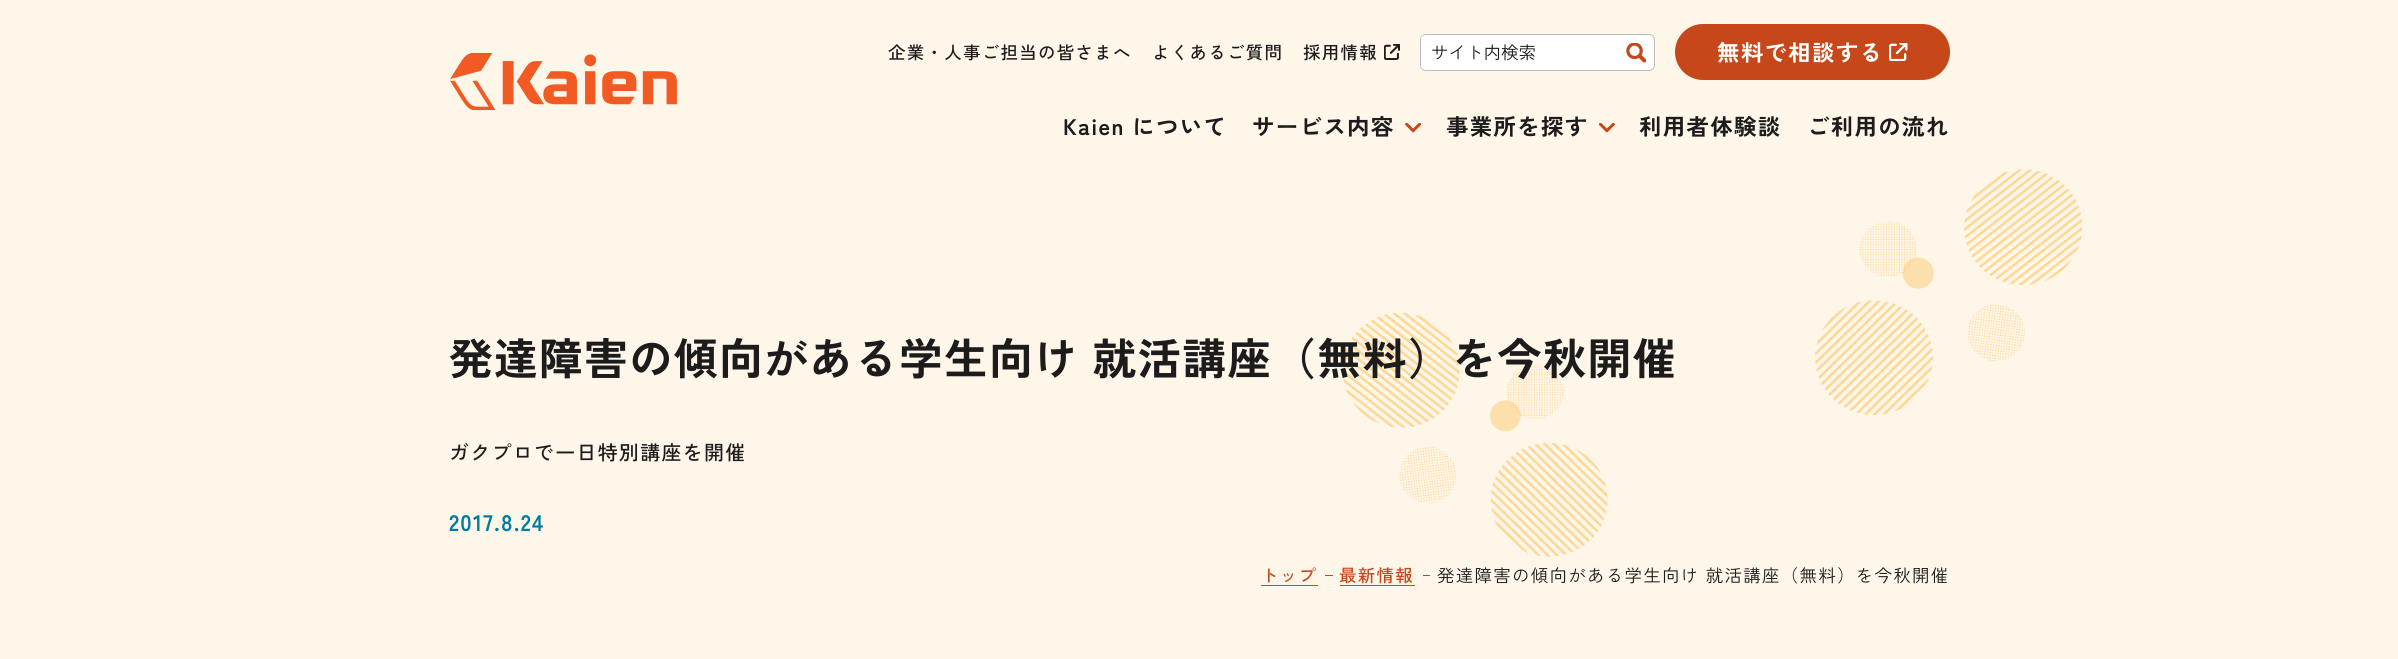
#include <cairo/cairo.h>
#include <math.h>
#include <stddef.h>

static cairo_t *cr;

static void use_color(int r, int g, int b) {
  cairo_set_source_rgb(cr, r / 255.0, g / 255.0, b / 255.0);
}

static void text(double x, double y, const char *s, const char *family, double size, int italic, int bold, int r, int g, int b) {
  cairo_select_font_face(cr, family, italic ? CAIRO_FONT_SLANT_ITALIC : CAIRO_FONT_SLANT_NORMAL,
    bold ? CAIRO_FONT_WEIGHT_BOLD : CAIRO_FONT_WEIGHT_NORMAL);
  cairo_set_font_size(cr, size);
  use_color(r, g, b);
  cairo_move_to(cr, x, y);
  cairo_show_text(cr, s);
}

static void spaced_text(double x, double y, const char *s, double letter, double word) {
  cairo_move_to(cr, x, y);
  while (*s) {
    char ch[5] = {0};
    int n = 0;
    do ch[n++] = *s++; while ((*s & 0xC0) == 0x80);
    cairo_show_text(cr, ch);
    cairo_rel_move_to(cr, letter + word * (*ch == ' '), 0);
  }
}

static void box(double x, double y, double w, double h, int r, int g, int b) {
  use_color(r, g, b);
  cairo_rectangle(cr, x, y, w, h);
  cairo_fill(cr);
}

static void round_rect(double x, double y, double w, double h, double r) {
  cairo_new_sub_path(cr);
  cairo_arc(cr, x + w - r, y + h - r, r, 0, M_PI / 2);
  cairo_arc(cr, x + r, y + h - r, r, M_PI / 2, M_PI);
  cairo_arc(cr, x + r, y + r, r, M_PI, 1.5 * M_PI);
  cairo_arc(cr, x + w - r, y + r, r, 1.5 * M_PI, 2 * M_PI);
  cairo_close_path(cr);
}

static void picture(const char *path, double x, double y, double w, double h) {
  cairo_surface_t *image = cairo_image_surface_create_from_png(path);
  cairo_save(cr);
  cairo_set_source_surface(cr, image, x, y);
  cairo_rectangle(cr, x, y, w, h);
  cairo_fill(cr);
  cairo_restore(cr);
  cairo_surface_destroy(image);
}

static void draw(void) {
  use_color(255, 246, 234);
  cairo_paint(cr);
  picture("img_01.png", 450, 53, 227, 57);
  picture("img_02.png", 1384, 44, 16, 16);
  use_color(255, 255, 255);
  round_rect(1420.5, 34.5, 234, 36, 5.5);
  cairo_fill_preserve(cr);
  use_color(188, 188, 188);
  cairo_set_line_width(cr, 1);
  cairo_stroke(cr);
  use_color(255, 255, 255);
  cairo_new_path(cr);
  cairo_move_to(cr, 1426, 35);
  cairo_line_to(cr, 1619, 35);
  cairo_line_to(cr, 1619, 70);
  cairo_line_to(cr, 1426, 70);
  cairo_curve_to(cr, 1423, 70, 1421, 68, 1421, 65);
  cairo_line_to(cr, 1421, 40);
  cairo_curve_to(cr, 1421, 37, 1423, 35, 1426, 35);
  cairo_close_path(cr);
  cairo_fill(cr);
  picture("img_03.png", 1626, 43, 20, 20);
  use_color(198, 72, 26);
  round_rect(1675, 24, 275, 56, 28);
  cairo_fill(cr);
  picture("img_04.png", 1889, 43, 19, 18);
  picture("img_05.png", 1405, 123, 16, 10);
  picture("img_06.png", 1599, 123, 16, 10);
  picture("img_07.png", 1342, 169, 741, 388);
  box(1261, 585, 57, 1, 198, 72, 26);
  box(1325, 575, 8, 1, 198, 72, 26);
  box(1340, 585, 75, 1, 198, 72, 26);
  box(1423, 575, 7, 1, 198, 72, 26);
  cairo_select_font_face(cr, "Zen Kaku Gothic New Medium", CAIRO_FONT_SLANT_NORMAL, CAIRO_FONT_WEIGHT_NORMAL);
  cairo_set_font_size(cr, 17.5);
  use_color(28, 28, 28);
  spaced_text(888, 59, "企業・人事ご担当の皆さまへ", 1.25, 0);
  spaced_text(1152, 59, "よくあるご質問", 1.25, 0);
  spaced_text(1303, 59, "採用情報", 1.25, 0);
  text(1431, 59, "サイト内検索", "Zen Kaku Gothic New", 17.5, 0, 0, 28, 28, 28);
  cairo_select_font_face(cr, "Zen Kaku Gothic New", CAIRO_FONT_SLANT_NORMAL, CAIRO_FONT_WEIGHT_BOLD);
  cairo_set_font_size(cr, 22.5);
  use_color(255, 255, 255);
  spaced_text(1717, 61, "無料で相談する", 1.25, 0);
  use_color(28, 28, 28);
  spaced_text(1063, 135, "Kaien について", 1.25, 0);
  spaced_text(1252, 135, "サービス内容", 1.25, 0);
  spaced_text(1446, 135, "事業所を探す", 1.25, 0);
  spaced_text(1639, 135, "利用者体験談", 1.25, 0);
  spaced_text(1807, 135, "ご利用の流れ", 1.25, 0);
  cairo_set_font_size(cr, 43.75);
  spaced_text(449, 375, "発達障害の傾向がある学生向け 就活講座（無料）を今秋開催", 1.25, 0);
  cairo_select_font_face(cr, "Zen Kaku Gothic New Medium", CAIRO_FONT_SLANT_NORMAL, CAIRO_FONT_WEIGHT_NORMAL);
  cairo_set_font_size(cr, 20);
  spaced_text(449, 460, "ガクプロで一日特別講座を開催", 1.25, 0);
  cairo_select_font_face(cr, "Zen Kaku Gothic New", CAIRO_FONT_SLANT_NORMAL, CAIRO_FONT_WEIGHT_BOLD);
  cairo_set_font_size(cr, 22.5);
  use_color(0, 123, 161);
  spaced_text(449, 531, "2017.8.24", 1.25, 0);
  cairo_select_font_face(cr, "Zen Kaku Gothic New Medium", CAIRO_FONT_SLANT_NORMAL, CAIRO_FONT_WEIGHT_NORMAL);
  cairo_set_font_size(cr, 17.5);
  use_color(198, 72, 26);
  spaced_text(1261, 582, "トップ", 1.25, 0);
  spaced_text(1339, 582, "最新情報", 1.25, 0);
  cairo_select_font_face(cr, "Zen Kaku Gothic New", CAIRO_FONT_SLANT_NORMAL, CAIRO_FONT_WEIGHT_NORMAL);
  use_color(28, 28, 28);
  spaced_text(1437, 582, "発達障害の傾向がある学生向け 就活講座（無料）を今秋開催", 1.25, 0);
}

int main(void) {
  cairo_surface_t *surface = cairo_image_surface_create(CAIRO_FORMAT_RGB24, 2398, 659);
  cr = cairo_create(surface);
  cairo_font_options_t *options = cairo_font_options_create();
  cairo_font_options_set_hint_metrics(options, CAIRO_HINT_METRICS_OFF);
  cairo_font_options_set_hint_style(options, CAIRO_HINT_STYLE_NONE);
  cairo_set_font_options(cr, options);
  cairo_set_miter_limit(cr, 4);
  draw();
  cairo_surface_write_to_png(surface, "out.png");
  cairo_font_options_destroy(options);
  cairo_destroy(cr);
  cairo_surface_destroy(surface);
  return 0;
}
